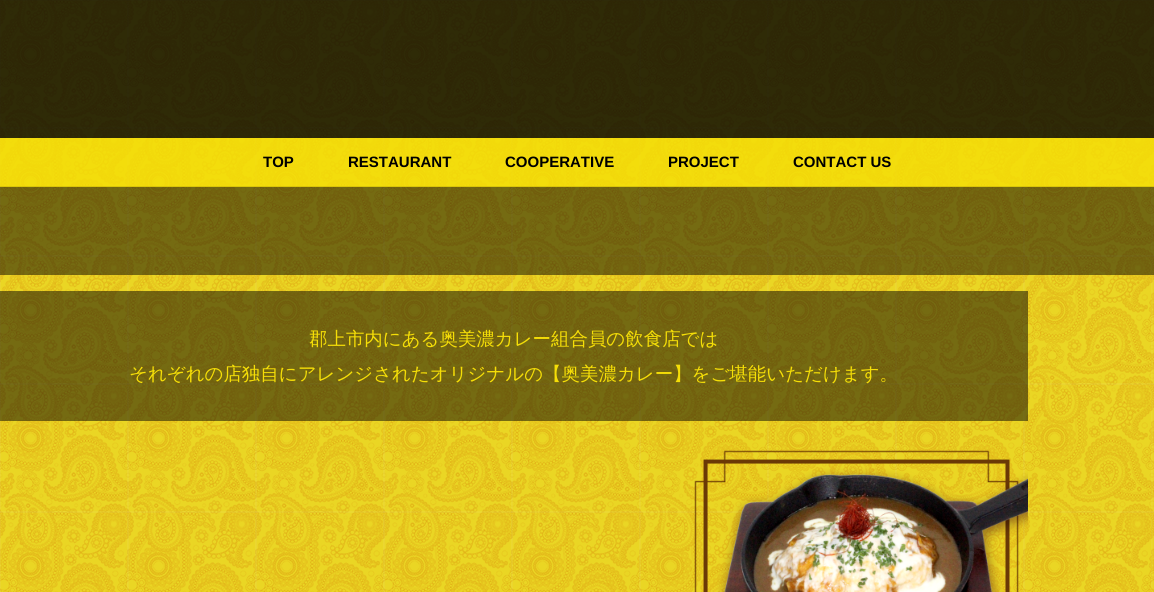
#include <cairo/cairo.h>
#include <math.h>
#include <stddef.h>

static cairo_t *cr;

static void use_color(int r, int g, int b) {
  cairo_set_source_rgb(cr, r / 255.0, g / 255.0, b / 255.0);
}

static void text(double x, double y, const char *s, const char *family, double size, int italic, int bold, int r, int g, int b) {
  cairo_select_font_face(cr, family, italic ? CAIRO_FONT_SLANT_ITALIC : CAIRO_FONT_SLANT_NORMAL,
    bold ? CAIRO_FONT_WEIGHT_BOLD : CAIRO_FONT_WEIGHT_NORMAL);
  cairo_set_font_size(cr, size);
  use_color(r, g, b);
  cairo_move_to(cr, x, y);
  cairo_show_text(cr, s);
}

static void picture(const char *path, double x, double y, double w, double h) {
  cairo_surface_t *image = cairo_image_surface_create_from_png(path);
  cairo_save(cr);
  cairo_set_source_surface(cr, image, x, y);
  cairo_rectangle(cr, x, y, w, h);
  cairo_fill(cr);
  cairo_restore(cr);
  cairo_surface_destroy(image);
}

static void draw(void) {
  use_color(255, 255, 255);
  cairo_paint(cr);
  picture("img_01.png", 0, 0, 1154, 592);
  cairo_set_source_rgba(cr, 0, 0, 0, 0.8);
  cairo_rectangle(cr, 0, 0, 1154, 138);
  cairo_fill(cr);
  cairo_set_source_rgba(cr, 0, 0, 0, 0.5);
  cairo_rectangle(cr, 0, 186, 1154, 89);
  cairo_fill(cr);
  cairo_set_source_rgba(cr, 0.961, 0.871, 0.027, 0.8);
  cairo_rectangle(cr, 0, 138, 1154, 49);
  cairo_fill(cr);
  cairo_set_source_rgba(cr, 0, 0, 0, 0.5);
  cairo_rectangle(cr, 0, 291, 1028, 130);
  cairo_fill(cr);
  picture("img_02.png", 694, 450, 334, 142);
  text(263, 167, "TOP", "Liberation Sans", 15, 0, 1, 0, 0, 0);
  text(348, 167, "RESTAURANT", "Liberation Sans", 15, 0, 1, 0, 0, 0);
  text(505, 167, "COOPERATIVE", "Liberation Sans", 15, 0, 1, 0, 0, 0);
  text(668, 167, "PROJECT", "Liberation Sans", 15, 0, 1, 0, 0, 0);
  text(793, 167, "CONTACT US", "Liberation Sans", 15, 0, 1, 0, 0, 0);
  text(309, 345, "郡上市内にある奥美濃カレー組合員の飲食店では", "WenQuanYi Zen Hei Medium", 18.45, 0, 0, 245, 222, 7);
  text(129, 380, "それぞれの店独自にアレンジされたオリジナルの【奥美濃カレー】をご堪能いただけます。", "WenQuanYi Zen Hei Medium", 18.45, 0, 0, 245, 222, 7);
}

int main(void) {
  cairo_surface_t *surface = cairo_image_surface_create(CAIRO_FORMAT_RGB24, 1154, 592);
  cr = cairo_create(surface);
  cairo_font_options_t *options = cairo_font_options_create();
  cairo_font_options_set_hint_metrics(options, CAIRO_HINT_METRICS_OFF);
  cairo_font_options_set_hint_style(options, CAIRO_HINT_STYLE_NONE);
  cairo_set_font_options(cr, options);
  cairo_set_miter_limit(cr, 4);
  draw();
  cairo_surface_write_to_png(surface, "out.png");
  cairo_font_options_destroy(options);
  cairo_destroy(cr);
  cairo_surface_destroy(surface);
  return 0;
}
